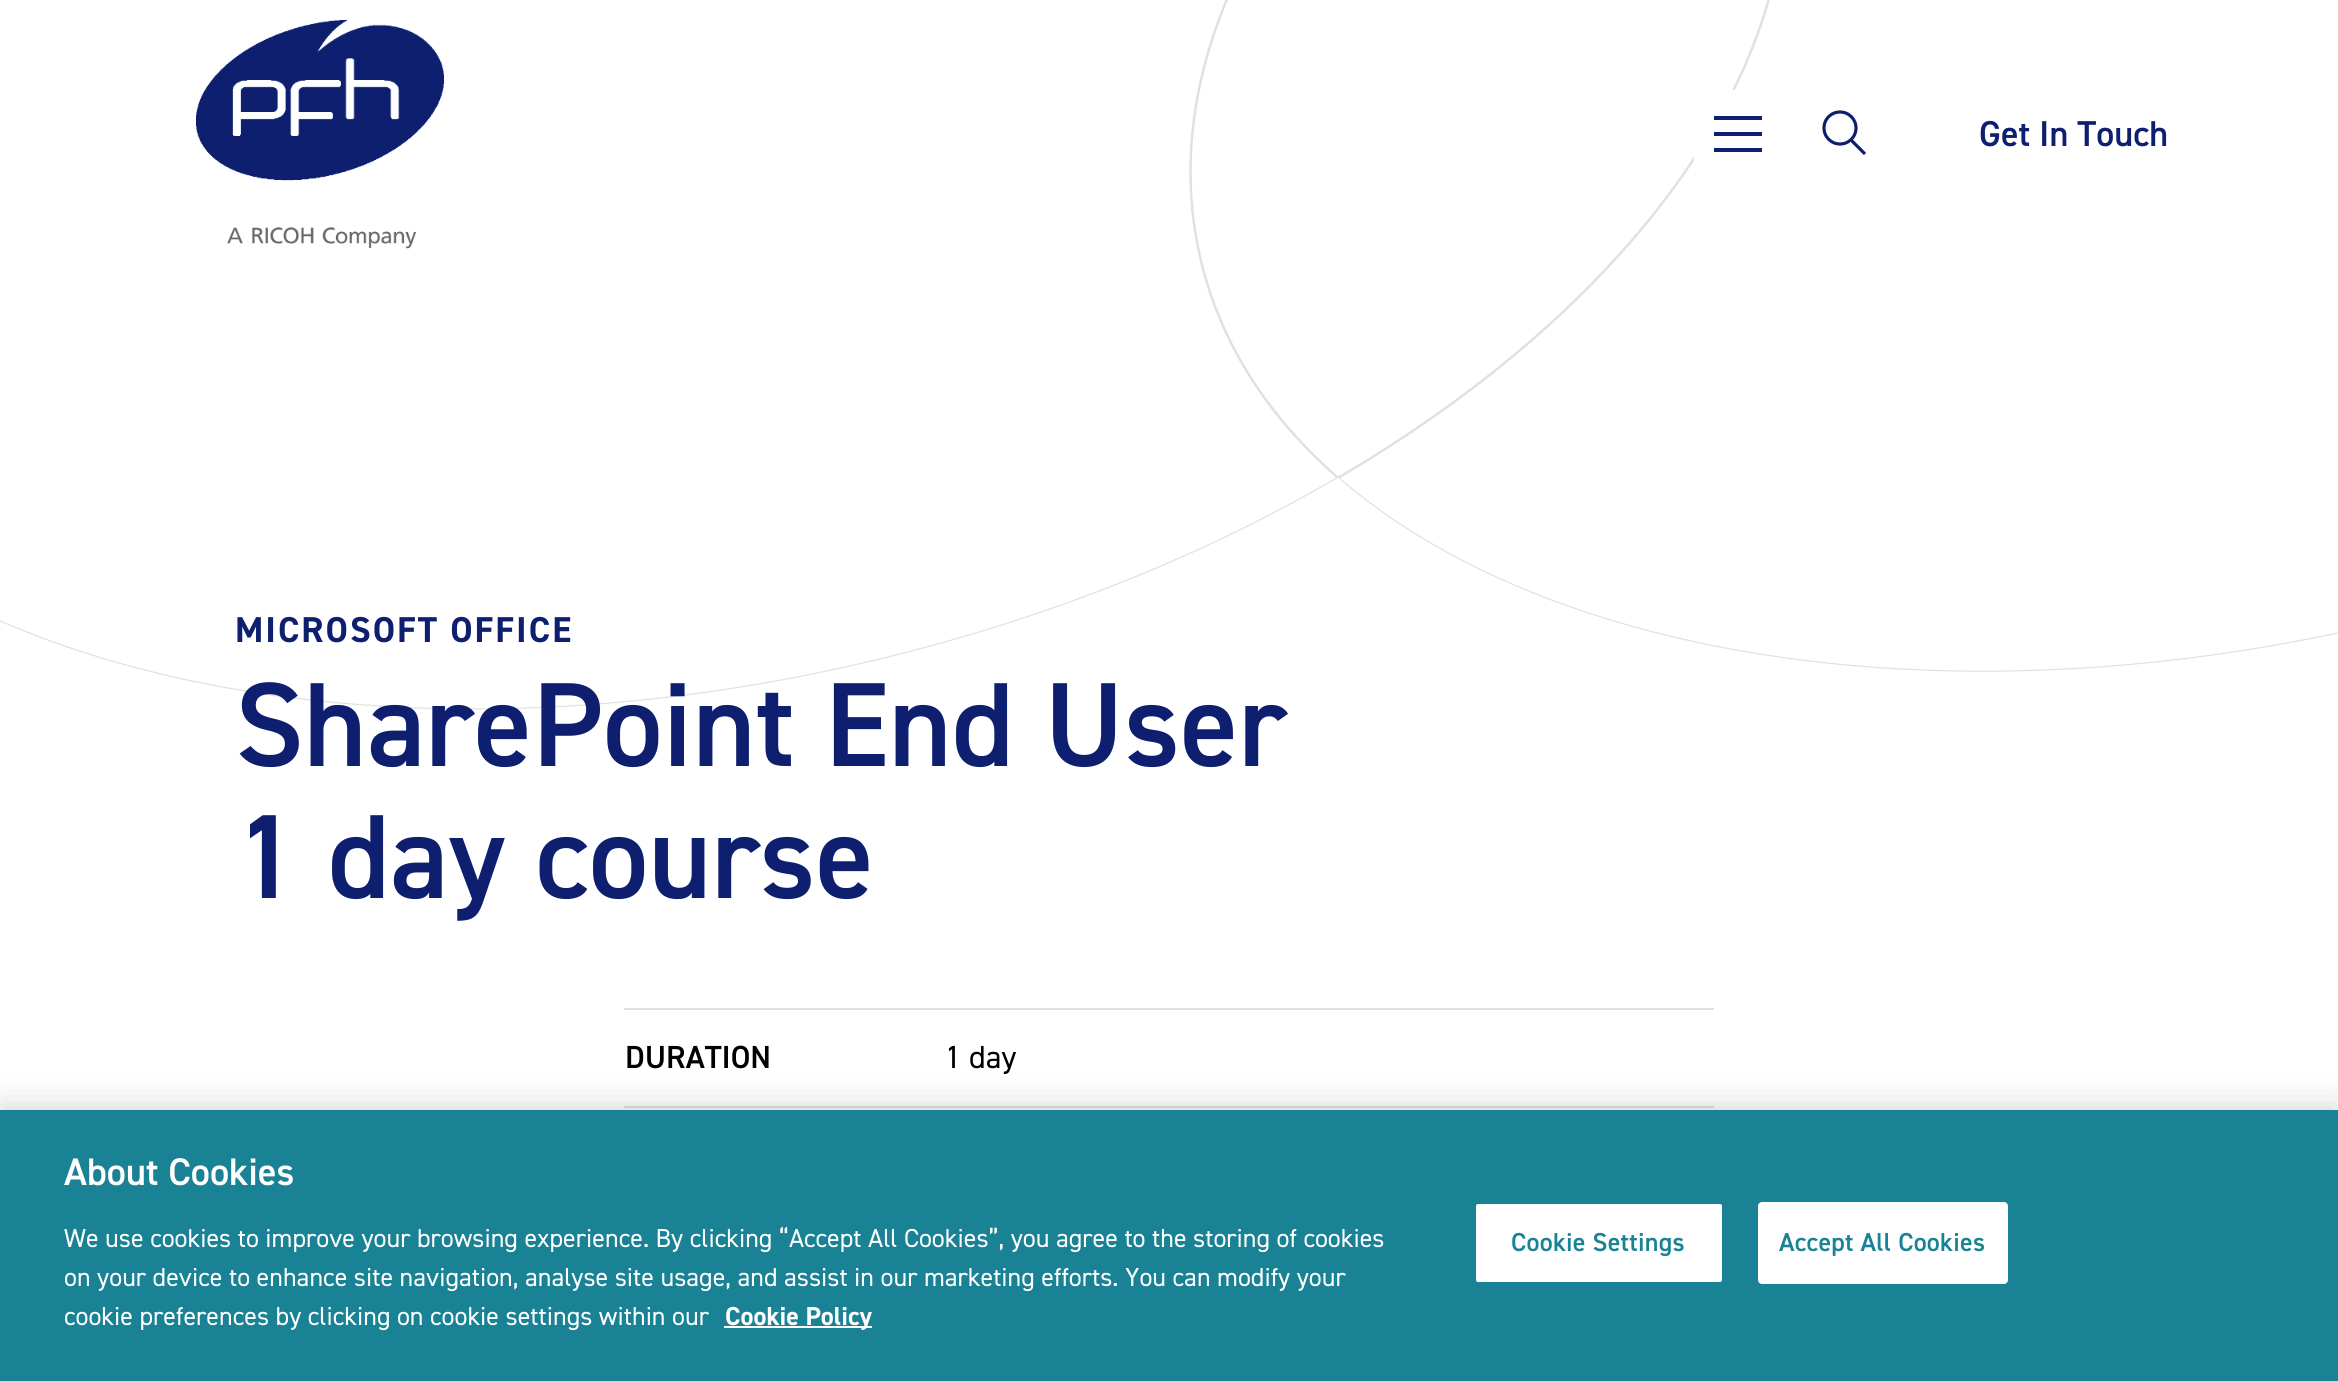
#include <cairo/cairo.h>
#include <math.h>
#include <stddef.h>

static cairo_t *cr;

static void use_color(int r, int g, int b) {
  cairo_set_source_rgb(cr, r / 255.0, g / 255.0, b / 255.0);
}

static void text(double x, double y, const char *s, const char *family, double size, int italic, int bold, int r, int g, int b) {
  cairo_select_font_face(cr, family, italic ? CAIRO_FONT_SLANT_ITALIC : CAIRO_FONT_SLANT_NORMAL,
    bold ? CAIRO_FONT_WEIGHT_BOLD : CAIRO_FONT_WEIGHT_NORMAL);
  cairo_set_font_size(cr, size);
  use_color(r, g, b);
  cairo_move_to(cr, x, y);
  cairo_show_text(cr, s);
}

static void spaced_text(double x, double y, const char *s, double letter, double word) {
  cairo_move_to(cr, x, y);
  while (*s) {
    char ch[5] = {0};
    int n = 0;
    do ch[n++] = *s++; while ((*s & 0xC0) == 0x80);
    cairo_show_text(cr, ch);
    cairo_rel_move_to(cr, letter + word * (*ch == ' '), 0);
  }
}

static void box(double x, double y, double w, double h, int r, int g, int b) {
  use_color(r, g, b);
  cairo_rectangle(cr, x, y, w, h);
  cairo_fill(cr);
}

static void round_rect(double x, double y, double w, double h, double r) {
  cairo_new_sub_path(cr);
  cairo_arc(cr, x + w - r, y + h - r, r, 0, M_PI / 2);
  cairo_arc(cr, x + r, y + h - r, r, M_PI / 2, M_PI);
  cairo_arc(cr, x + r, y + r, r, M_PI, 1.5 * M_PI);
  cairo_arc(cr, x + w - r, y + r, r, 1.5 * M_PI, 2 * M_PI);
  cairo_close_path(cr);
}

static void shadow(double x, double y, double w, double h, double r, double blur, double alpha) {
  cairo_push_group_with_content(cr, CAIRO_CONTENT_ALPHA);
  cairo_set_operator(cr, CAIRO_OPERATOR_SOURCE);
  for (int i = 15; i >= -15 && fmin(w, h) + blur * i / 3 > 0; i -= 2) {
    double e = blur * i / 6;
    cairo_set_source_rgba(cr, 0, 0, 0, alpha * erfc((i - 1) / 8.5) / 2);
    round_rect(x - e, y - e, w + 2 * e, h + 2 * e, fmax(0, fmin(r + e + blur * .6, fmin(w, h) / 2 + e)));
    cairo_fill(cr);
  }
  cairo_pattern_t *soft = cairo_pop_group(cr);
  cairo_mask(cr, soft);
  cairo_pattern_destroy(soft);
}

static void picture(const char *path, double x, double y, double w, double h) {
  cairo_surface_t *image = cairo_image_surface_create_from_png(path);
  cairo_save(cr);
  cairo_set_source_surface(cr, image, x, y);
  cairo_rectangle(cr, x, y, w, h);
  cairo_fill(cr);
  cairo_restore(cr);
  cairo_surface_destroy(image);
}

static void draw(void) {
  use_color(255, 255, 255);
  cairo_paint(cr);
  picture("img_02.png", 0, 0, 2338, 710);
  picture("img_01.png", 196, 20, 248, 229);
  use_color(255, 255, 255);
  round_rect(1694, 90, 88, 88, 8);
  cairo_fill(cr);
  box(1714, 116, 48, 4, 14, 31, 112);
  box(1714, 132, 48, 4, 14, 31, 112);
  box(1714, 148, 48, 4, 14, 31, 112);
  cairo_arc(cr, 1840, 128, 16, 0, 2 * M_PI);
  cairo_set_line_width(cr, 3.2);
  cairo_stroke(cr);
  cairo_new_path(cr);
  cairo_move_to(cr, 1850.5, 139.5);
  cairo_line_to(cr, 1865, 154);
  cairo_stroke(cr);
  box(624, 1008, 1090, 2, 224, 224, 224);
  box(624, 1106, 1090, 2, 224, 224, 224);
  use_color(0, 0, 0);
  shadow(0, 1110, 2338, 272, 0, 18, 0.2);
  box(0, 1110, 2338, 271, 26, 130, 149);
  box(724, 1326, 148, 2, 255, 255, 255);
  round_rect(1475, 1203, 248, 80, 3);
  cairo_fill_preserve(cr);
  use_color(26, 130, 149);
  cairo_set_line_width(cr, 2);
  cairo_stroke(cr);
  use_color(255, 255, 255);
  round_rect(1759, 1203, 248, 80, 3);
  cairo_fill_preserve(cr);
  cairo_stroke(cr);
  text(1979, 146, "Get In Touch", "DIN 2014 SemiBold", 36, 0, 0, 14, 31, 112);
  cairo_select_font_face(cr, "DIN 2014", CAIRO_FONT_SLANT_NORMAL, CAIRO_FONT_WEIGHT_BOLD);
  spaced_text(235, 642, "MICROSOFT OFFICE", 2, 0);
  text(235, 766, "SharePoint End User", "DIN 2014 SemiBold", 120, 0, 0, 14, 31, 112);
  text(235, 898, "1 day course", "DIN 2014 SemiBold", 120, 0, 0, 14, 31, 112);
  text(625, 1068, "DURATION", "DIN 2014 SemiBold", 32, 0, 0, 0, 0, 0);
  text(945, 1068, "1 day", "DIN 2014", 32, 0, 0, 0, 0, 0);
  text(64, 1185, "About Cookies", "DIN 2014 SemiBold", 38.5, 0, 0, 255, 255, 255);
  text(64, 1247, "We use cookies to improve your browsing experience. By clicking “Accept All Cookies”, you agree to the storing of cookies", "DIN 2014", 26.02, 0, 0, 255, 255, 255);
  text(64, 1286, "on your device to enhance site navigation, analyse site usage, and assist in our marketing efforts. You can modify your", "DIN 2014", 26.02, 0, 0, 255, 255, 255);
  text(64, 1325, "cookie preferences by clicking on cookie settings within our", "DIN 2014", 26.02, 0, 0, 255, 255, 255);
  text(725, 1325, "Cookie Policy", "DIN 2014", 26.02, 0, 1, 255, 255, 255);
  cairo_select_font_face(cr, "DIN 2014 SemiBold", CAIRO_FONT_SLANT_NORMAL, CAIRO_FONT_WEIGHT_NORMAL);
  use_color(26, 130, 149);
  spaced_text(1511, 1251, "Cookie Settings", 0.25, 0);
  spaced_text(1779, 1251, "Accept All Cookies", 0.25, 0);
}

int main(void) {
  cairo_surface_t *surface = cairo_image_surface_create(CAIRO_FORMAT_RGB24, 2338, 1381);
  cr = cairo_create(surface);
  cairo_font_options_t *options = cairo_font_options_create();
  cairo_font_options_set_hint_metrics(options, CAIRO_HINT_METRICS_OFF);
  cairo_font_options_set_hint_style(options, CAIRO_HINT_STYLE_NONE);
  cairo_set_font_options(cr, options);
  cairo_set_miter_limit(cr, 4);
  draw();
  cairo_surface_write_to_png(surface, "out.png");
  cairo_font_options_destroy(options);
  cairo_destroy(cr);
  cairo_surface_destroy(surface);
  return 0;
}
